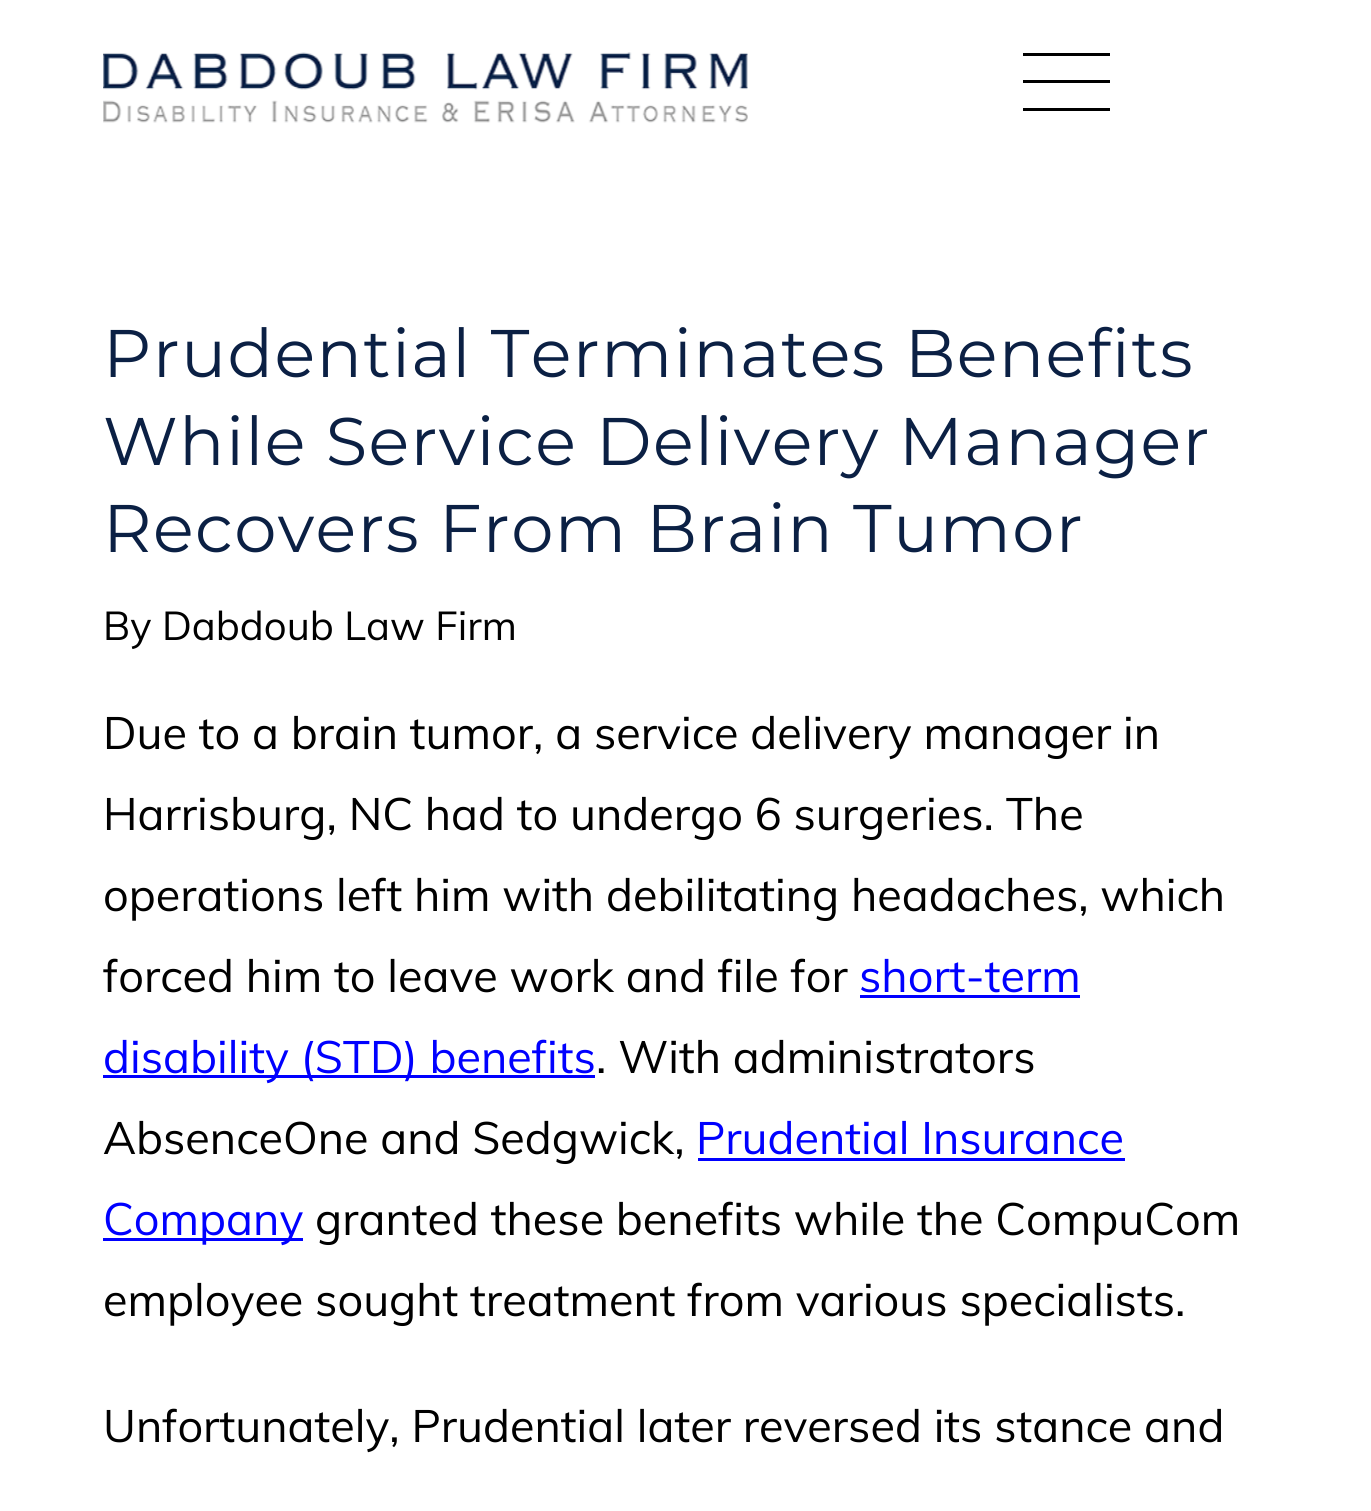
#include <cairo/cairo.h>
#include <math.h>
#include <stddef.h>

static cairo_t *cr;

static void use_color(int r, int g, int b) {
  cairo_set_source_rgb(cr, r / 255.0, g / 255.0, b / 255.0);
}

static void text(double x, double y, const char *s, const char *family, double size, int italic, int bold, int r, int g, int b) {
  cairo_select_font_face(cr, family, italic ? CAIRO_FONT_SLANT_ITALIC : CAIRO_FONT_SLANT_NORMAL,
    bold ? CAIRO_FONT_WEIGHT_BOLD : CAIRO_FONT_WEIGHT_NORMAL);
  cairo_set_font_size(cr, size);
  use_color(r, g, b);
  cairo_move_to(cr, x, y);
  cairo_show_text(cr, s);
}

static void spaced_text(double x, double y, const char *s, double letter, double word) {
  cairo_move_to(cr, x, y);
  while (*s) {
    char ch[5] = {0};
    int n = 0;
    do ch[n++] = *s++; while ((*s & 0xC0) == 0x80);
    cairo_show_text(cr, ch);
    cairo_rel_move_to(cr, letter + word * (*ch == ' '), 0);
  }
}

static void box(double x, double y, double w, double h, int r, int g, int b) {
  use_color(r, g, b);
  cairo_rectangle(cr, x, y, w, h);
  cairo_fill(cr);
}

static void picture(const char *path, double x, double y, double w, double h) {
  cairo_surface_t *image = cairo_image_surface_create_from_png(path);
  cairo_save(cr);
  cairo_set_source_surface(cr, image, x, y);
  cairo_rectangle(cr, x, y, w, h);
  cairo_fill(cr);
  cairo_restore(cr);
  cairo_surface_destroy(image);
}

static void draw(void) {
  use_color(255, 255, 255);
  cairo_paint(cr);
  picture("img_01.png", 103, 52, 645, 71);
  box(1023, 53, 87, 3, 0, 0, 0);
  box(1023, 80, 87, 3, 0, 0, 0);
  box(1023, 108, 87, 3, 0, 0, 0);
  box(860, 995, 220, 3, 0, 0, 255);
  box(103, 1075, 492, 3, 0, 0, 255);
  box(698, 1158, 427, 3, 0, 0, 255);
  box(103, 1238, 200, 3, 0, 0, 255);
  cairo_select_font_face(cr, "Montserrat", CAIRO_FONT_SLANT_NORMAL, CAIRO_FONT_WEIGHT_NORMAL);
  cairo_set_font_size(cr, 67.25);
  use_color(11, 32, 68);
  spaced_text(103, 377, "Prudential Terminates Benefits", 1.35, 0);
  spaced_text(103, 465, "While Service Delivery Manager", 1.35, 0);
  spaced_text(103, 552, "Recovers From Brain Tumor", 1.35, 0);
  text(103, 640, "By Dabdoub Law Firm", "Muli", 40, 0, 0, 0, 0, 0);
  text(103, 749, "Due to a brain tumor, a service delivery manager in", "Muli", 45, 0, 0, 0, 0, 0);
  text(103, 830, "Harrisburg, NC had to undergo 6 surgeries. The", "Muli", 45, 0, 0, 0, 0, 0);
  text(103, 911, "operations left him with debilitating headaches, which", "Muli", 45, 0, 0, 0, 0, 0);
  text(103, 992, "forced him to leave work and file for", "Muli", 45, 0, 0, 0, 0, 0);
  text(859, 992, "short-term", "Muli", 45, 0, 0, 0, 0, 255);
  text(103, 1073, "disability (STD) benefits", "Muli", 45, 0, 0, 0, 0, 255);
  text(596, 1073, ". With administrators", "Muli", 45, 0, 0, 0, 0, 0);
  text(103, 1154, "AbsenceOne and Sedgwick,", "Muli", 45, 0, 0, 0, 0, 0);
  text(696, 1154, "Prudential Insurance", "Muli", 45, 0, 0, 0, 0, 255);
  text(103, 1235, "Company", "Muli", 45, 0, 0, 0, 0, 255);
  text(315, 1235, "granted these benefits while the CompuCom", "Muli", 45, 0, 0, 0, 0, 0);
  text(103, 1316, "employee sought treatment from various specialists.", "Muli", 45, 0, 0, 0, 0, 0);
  text(103, 1442, "Unfortunately, Prudential later reversed its stance and", "Muli", 45, 0, 0, 0, 0, 0);
}

int main(void) {
  cairo_surface_t *surface = cairo_image_surface_create(CAIRO_FORMAT_RGB24, 1371, 1511);
  cr = cairo_create(surface);
  cairo_font_options_t *options = cairo_font_options_create();
  cairo_font_options_set_hint_metrics(options, CAIRO_HINT_METRICS_OFF);
  cairo_font_options_set_hint_style(options, CAIRO_HINT_STYLE_NONE);
  cairo_set_font_options(cr, options);
  cairo_set_miter_limit(cr, 4);
  draw();
  cairo_surface_write_to_png(surface, "out.png");
  cairo_font_options_destroy(options);
  cairo_destroy(cr);
  cairo_surface_destroy(surface);
  return 0;
}
